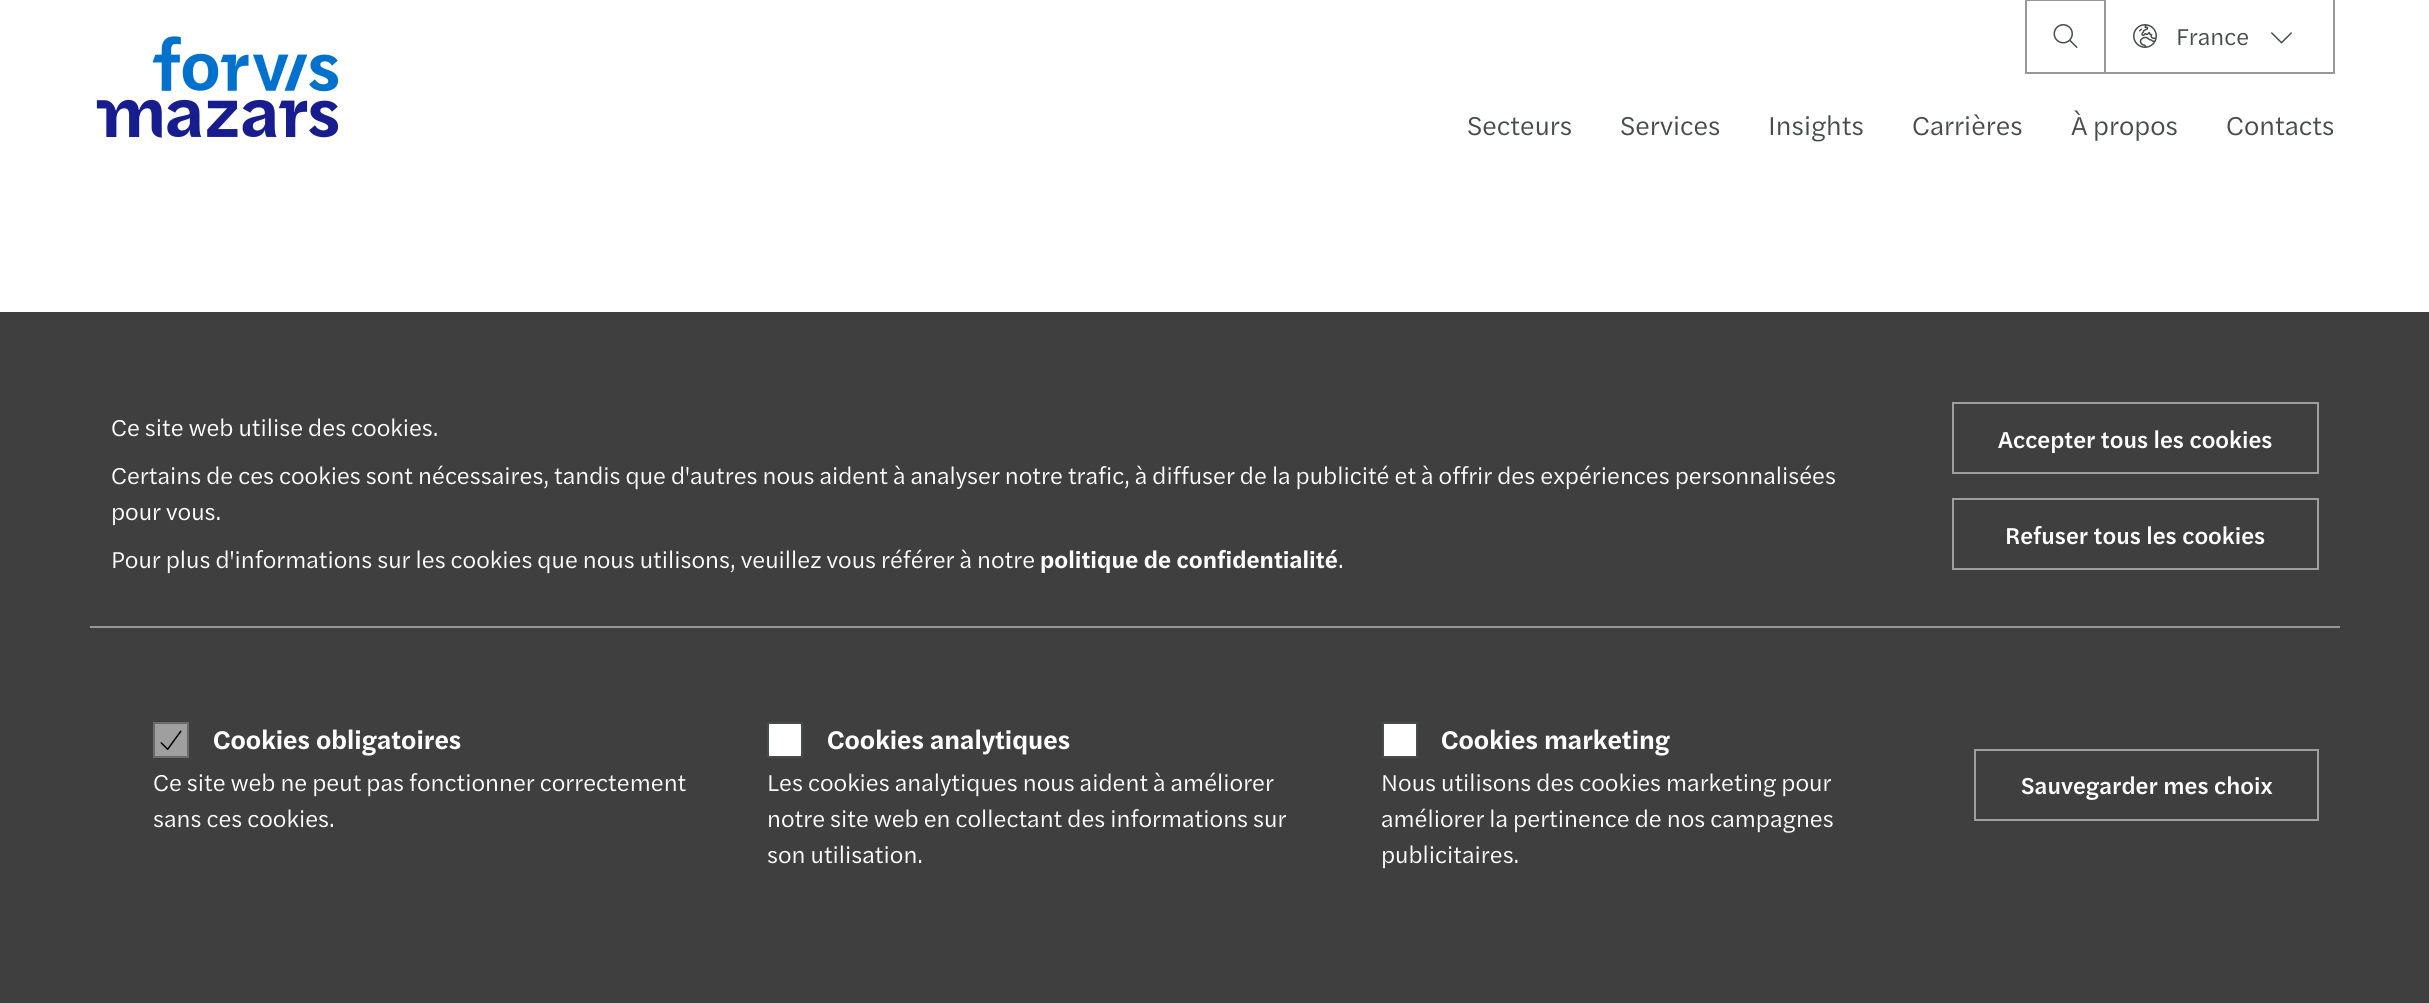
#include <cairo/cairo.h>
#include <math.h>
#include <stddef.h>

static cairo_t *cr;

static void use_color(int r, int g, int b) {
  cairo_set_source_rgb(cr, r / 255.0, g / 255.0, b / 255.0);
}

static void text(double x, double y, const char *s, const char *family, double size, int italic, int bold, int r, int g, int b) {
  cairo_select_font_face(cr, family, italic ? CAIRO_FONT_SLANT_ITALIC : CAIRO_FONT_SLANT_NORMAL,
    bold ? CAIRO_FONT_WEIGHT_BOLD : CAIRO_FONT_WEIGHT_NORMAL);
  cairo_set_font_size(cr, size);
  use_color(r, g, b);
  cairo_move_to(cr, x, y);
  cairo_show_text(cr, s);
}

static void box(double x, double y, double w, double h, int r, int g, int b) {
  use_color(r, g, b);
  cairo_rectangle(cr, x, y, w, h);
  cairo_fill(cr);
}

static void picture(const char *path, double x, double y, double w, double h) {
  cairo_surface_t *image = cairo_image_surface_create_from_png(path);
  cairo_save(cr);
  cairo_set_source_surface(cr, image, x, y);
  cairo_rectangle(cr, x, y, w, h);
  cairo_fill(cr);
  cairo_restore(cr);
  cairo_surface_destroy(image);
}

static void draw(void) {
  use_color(255, 255, 255);
  cairo_paint(cr);
  picture("img_01.png", 96, 36, 243, 102);
  cairo_rectangle(cr, 2026, 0, 79, 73);
  use_color(151, 151, 151);
  cairo_stroke(cr);
  picture("img_02.png", 2053, 24, 25, 24);
  box(2333, 0, 2, 74, 151, 151, 151);
  box(2106, 72, 228, 2, 151, 151, 151);
  picture("img_03.png", 2133, 24, 24, 24);
  picture("img_04.png", 2271, 32, 21, 12);
  box(0, 312, 2429, 691, 63, 63, 63);
  cairo_rectangle(cr, 1953, 403, 365, 70);
  use_color(159, 159, 159);
  cairo_stroke(cr);
  cairo_rectangle(cr, 1953, 499, 365, 70);
  cairo_stroke(cr);
  box(90, 626, 2250, 2, 151, 151, 151);
  use_color(159, 159, 159);
  cairo_rectangle(cr, 154, 723, 34, 34);
  cairo_fill_preserve(cr);
  use_color(107, 107, 107);
  cairo_stroke(cr);
  picture("img_05.png", 160, 730, 22, 20);
  use_color(255, 255, 255);
  cairo_rectangle(cr, 768, 723, 34, 34);
  cairo_fill_preserve(cr);
  use_color(70, 75, 75);
  cairo_stroke(cr);
  use_color(255, 255, 255);
  cairo_rectangle(cr, 1383, 723, 34, 34);
  cairo_fill_preserve(cr);
  use_color(70, 75, 75);
  cairo_stroke(cr);
  cairo_rectangle(cr, 1975, 750, 343, 70);
  use_color(159, 159, 159);
  cairo_stroke(cr);
  text(2176, 45, "France", "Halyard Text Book", 24, 0, 0, 70, 75, 75);
  text(1467, 135, "Secteurs", "Halyard Text Book", 27, 0, 0, 70, 75, 75);
  text(1620, 135, "Services", "Halyard Text Book", 27, 0, 0, 70, 75, 75);
  text(1768, 135, "Insights", "Halyard Text Book", 27, 0, 0, 70, 75, 75);
  text(1912, 135, "Carrières", "Halyard Text Book", 27, 0, 0, 70, 75, 75);
  text(2071, 135, "À propos", "Halyard Text Book", 27, 0, 0, 70, 75, 75);
  text(2226, 135, "Contacts", "Halyard Text Book", 27, 0, 0, 70, 75, 75);
  text(111, 436, "Ce site web utilise des cookies.", "Halyard Text Book", 24, 0, 0, 255, 255, 255);
  text(111, 484, "Certains de ces cookies sont nécessaires, tandis que d'autres nous aident à analyser notre trafic, à diffuser de la publicité et à offrir des expériences personnalisées", "Halyard Text Book", 24, 0, 0, 255, 255, 255);
  text(111, 520, "pour vous.", "Halyard Text Book", 24, 0, 0, 255, 255, 255);
  text(111, 568, "Pour plus d'informations sur les cookies que nous utilisons, veuillez vous référer à notre", "Halyard Text Book", 24, 0, 0, 255, 255, 255);
  text(1040, 568, "politique de confidentialité", "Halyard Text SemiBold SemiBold", 24, 0, 0, 255, 255, 255);
  text(1338, 568, ".", "Halyard Text Book", 24, 0, 0, 255, 255, 255);
  text(1998, 448, "Accepter tous les cookies", "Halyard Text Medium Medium", 24, 0, 0, 255, 255, 255);
  text(2005, 544, "Refuser tous les cookies", "Halyard Text Medium Medium", 24, 0, 0, 255, 255, 255);
  text(213, 749, "Cookies obligatoires", "Halyard Text SemiBold SemiBold", 26.5, 0, 0, 255, 255, 255);
  text(153, 791, "Ce site web ne peut pas fonctionner correctement", "Halyard Text Book", 24, 0, 0, 255, 255, 255);
  text(153, 827, "sans ces cookies.", "Halyard Text Book", 24, 0, 0, 255, 255, 255);
  text(827, 749, "Cookies analytiques", "Halyard Text SemiBold SemiBold", 26.5, 0, 0, 255, 255, 255);
  text(767, 791, "Les cookies analytiques nous aident à améliorer", "Halyard Text Book", 24, 0, 0, 255, 255, 255);
  text(767, 827, "notre site web en collectant des informations sur", "Halyard Text Book", 24, 0, 0, 255, 255, 255);
  text(767, 863, "son utilisation.", "Halyard Text Book", 24, 0, 0, 255, 255, 255);
  text(1441, 749, "Cookies marketing", "Halyard Text SemiBold SemiBold", 26.5, 0, 0, 255, 255, 255);
  text(1381, 791, "Nous utilisons des cookies marketing pour", "Halyard Text Book", 24, 0, 0, 255, 255, 255);
  text(1381, 827, "améliorer la pertinence de nos campagnes", "Halyard Text Book", 24, 0, 0, 255, 255, 255);
  text(1381, 863, "publicitaires.", "Halyard Text Book", 24, 0, 0, 255, 255, 255);
  text(2021, 794, "Sauvegarder mes choix", "Halyard Text Medium Medium", 24, 0, 0, 255, 255, 255);
}

int main(void) {
  cairo_surface_t *surface = cairo_image_surface_create(CAIRO_FORMAT_RGB24, 2429, 1003);
  cr = cairo_create(surface);
  cairo_font_options_t *options = cairo_font_options_create();
  cairo_font_options_set_hint_metrics(options, CAIRO_HINT_METRICS_OFF);
  cairo_font_options_set_hint_style(options, CAIRO_HINT_STYLE_NONE);
  cairo_set_font_options(cr, options);
  cairo_set_miter_limit(cr, 4);
  draw();
  cairo_surface_write_to_png(surface, "out.png");
  cairo_font_options_destroy(options);
  cairo_destroy(cr);
  cairo_surface_destroy(surface);
  return 0;
}
